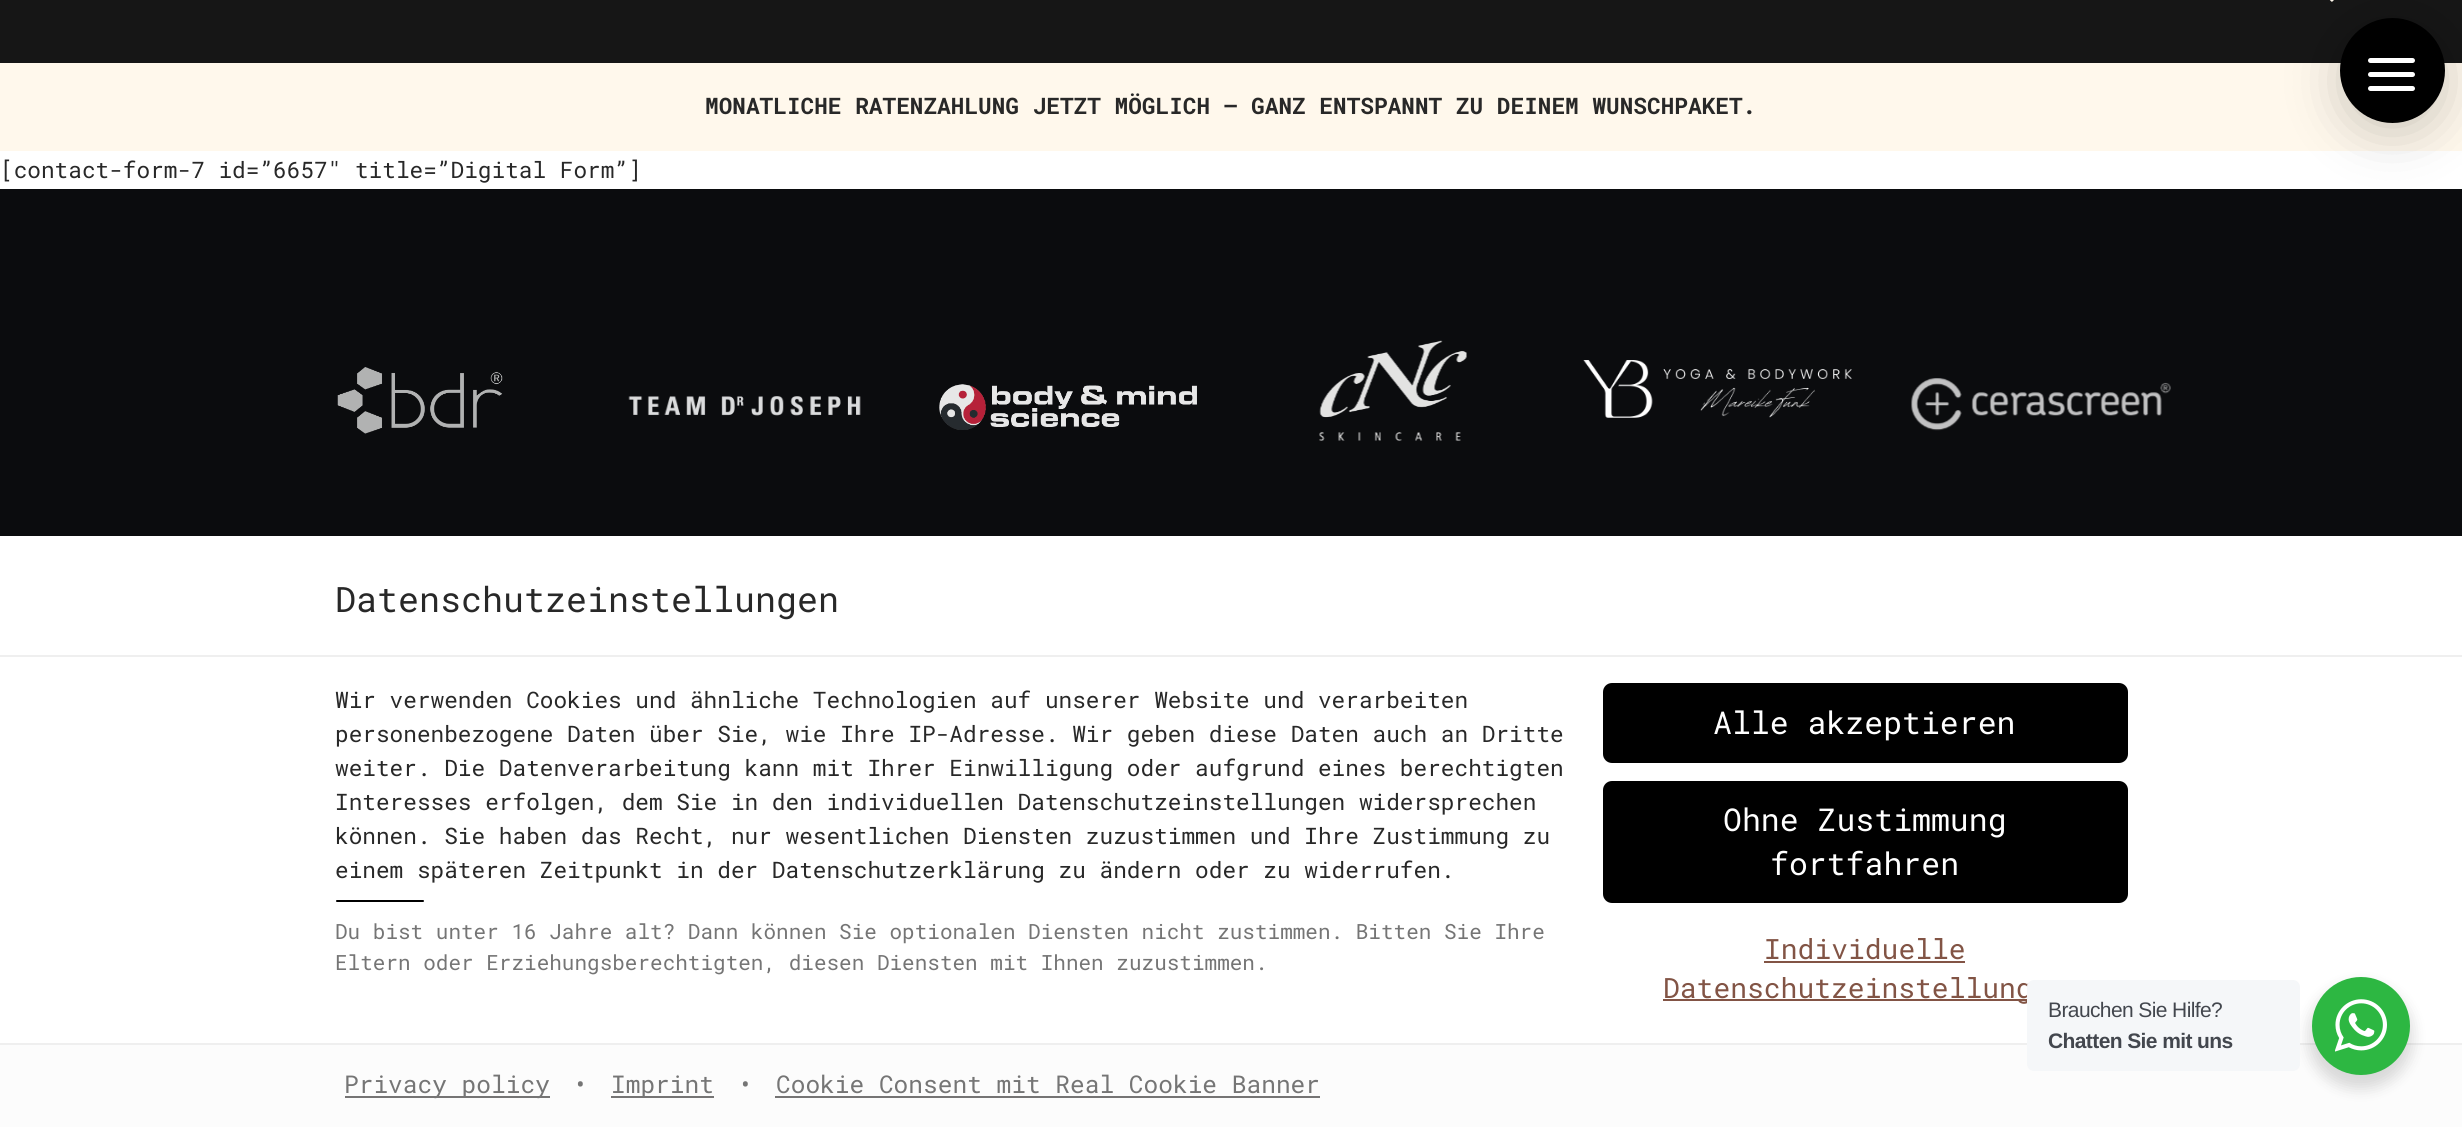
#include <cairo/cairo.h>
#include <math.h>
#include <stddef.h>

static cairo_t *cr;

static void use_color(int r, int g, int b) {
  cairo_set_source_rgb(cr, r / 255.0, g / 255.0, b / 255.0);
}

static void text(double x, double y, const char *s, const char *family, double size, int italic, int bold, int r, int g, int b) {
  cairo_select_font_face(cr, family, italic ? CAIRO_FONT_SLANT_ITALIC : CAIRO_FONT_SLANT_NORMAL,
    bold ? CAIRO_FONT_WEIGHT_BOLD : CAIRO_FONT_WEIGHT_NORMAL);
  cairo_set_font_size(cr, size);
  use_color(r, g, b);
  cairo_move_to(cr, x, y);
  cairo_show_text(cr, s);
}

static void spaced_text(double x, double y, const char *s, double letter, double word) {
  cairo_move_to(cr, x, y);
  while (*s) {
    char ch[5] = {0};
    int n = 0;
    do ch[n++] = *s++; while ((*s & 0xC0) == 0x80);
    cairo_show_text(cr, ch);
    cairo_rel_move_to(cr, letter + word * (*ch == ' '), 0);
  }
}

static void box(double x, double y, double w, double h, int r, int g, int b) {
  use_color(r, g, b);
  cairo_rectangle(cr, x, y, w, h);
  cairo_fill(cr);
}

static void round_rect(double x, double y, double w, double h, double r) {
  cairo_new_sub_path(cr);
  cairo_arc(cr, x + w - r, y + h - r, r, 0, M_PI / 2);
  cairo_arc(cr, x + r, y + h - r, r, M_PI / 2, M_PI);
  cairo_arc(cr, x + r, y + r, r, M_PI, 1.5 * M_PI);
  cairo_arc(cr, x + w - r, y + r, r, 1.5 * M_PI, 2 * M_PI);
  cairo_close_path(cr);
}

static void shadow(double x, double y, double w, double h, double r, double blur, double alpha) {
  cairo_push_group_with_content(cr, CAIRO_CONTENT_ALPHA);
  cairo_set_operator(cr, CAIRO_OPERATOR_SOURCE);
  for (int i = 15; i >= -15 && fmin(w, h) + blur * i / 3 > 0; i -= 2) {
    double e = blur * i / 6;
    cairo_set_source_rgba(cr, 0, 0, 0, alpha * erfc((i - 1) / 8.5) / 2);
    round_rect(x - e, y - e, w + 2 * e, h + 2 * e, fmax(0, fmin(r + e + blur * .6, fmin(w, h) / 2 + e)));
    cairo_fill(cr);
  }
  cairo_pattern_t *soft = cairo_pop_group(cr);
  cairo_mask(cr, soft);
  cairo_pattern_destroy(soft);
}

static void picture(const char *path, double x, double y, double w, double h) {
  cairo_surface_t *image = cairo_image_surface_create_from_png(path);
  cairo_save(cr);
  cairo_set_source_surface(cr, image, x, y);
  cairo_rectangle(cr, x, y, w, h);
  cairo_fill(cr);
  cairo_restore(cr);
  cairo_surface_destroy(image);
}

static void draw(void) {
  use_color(255, 255, 255);
  cairo_paint(cr);
  box(0, 0, 2462, 63, 22, 22, 22);
  picture("img_01.png", 2329, 0, 5, 2);
  box(0, 63, 2462, 88, 255, 248, 236);
  box(0, 189, 2462, 347, 11, 12, 14);
  picture("img_02.png", 337, 367, 166, 67);
  picture("img_03.png", 628, 396, 233, 20);
  picture("img_04.png", 939, 384, 258, 46);
  picture("img_05.png", 1319, 340, 148, 101);
  picture("img_06.png", 1583, 360, 269, 58);
  picture("img_07.png", 1911, 378, 260, 53);
  use_color(0, 0, 0);
  shadow(2340, 28, 105, 105, 52.5, 26, 0.2);
  use_color(0, 0, 0);
  cairo_arc(cr, 2392.5, 70.5, 52.5, 0, 2 * M_PI);
  cairo_fill(cr);
  use_color(255, 255, 255);
  round_rect(2368, 72, 47, 5, 2.5);
  cairo_fill(cr);
  round_rect(2368, 58, 47, 5, 2.5);
  cairo_fill(cr);
  round_rect(2368, 86, 47, 5, 2.5);
  cairo_fill(cr);
  box(0, 655, 2462, 2, 239, 239, 239);
  use_color(0, 0, 0);
  round_rect(336, 900, 88, 2, 1);
  cairo_fill(cr);
  round_rect(1603, 683, 525, 80, 9);
  cairo_fill(cr);
  round_rect(1603, 781, 525, 122, 9);
  cairo_fill(cr);
  box(1764, 961, 201, 2, 130, 84, 69);
  box(1663, 999, 364, 2, 130, 84, 69);
  box(0, 1045, 2462, 82, 252, 252, 252);
  box(0, 1043, 2462, 2, 239, 239, 239);
  box(345, 1096, 205, 2, 117, 116, 116);
  box(611, 1096, 103, 2, 117, 116, 116);
  box(775, 1096, 545, 2, 117, 116, 116);
  use_color(0, 0, 0);
  shadow(2308, 984, 105, 105, 52.5, 7, 0.14);
  use_color(45, 183, 66);
  cairo_arc(cr, 2361, 1026, 49, 0, 2 * M_PI);
  cairo_fill(cr);
  picture("img_08.png", 2335, 999, 52, 53);
  text(705, 114, "MONATLICHE RATENZAHLUNG JETZT MÖGLICH – GANZ ENTSPANNT ZU DEINEM WUNSCHPAKET.", "Roboto Mono", 22.75, 0, 1, 40, 40, 40);
  text(0, 178, "[contact-form-7 id=”6657″ title=”Digital Form”]", "Roboto Mono", 22.75, 0, 0, 40, 40, 40);
  text(335, 612, "Datenschutzeinstellungen", "Roboto Mono", 35, 0, 0, 40, 40, 40);
  text(335, 708, "Wir verwenden Cookies und ähnliche Technologien auf unserer Website und verarbeiten", "Roboto Mono", 22.75, 0, 0, 40, 40, 40);
  text(335, 742, "personenbezogene Daten über Sie, wie Ihre IP-Adresse. Wir geben diese Daten auch an Dritte", "Roboto Mono", 22.75, 0, 0, 40, 40, 40);
  text(335, 776, "weiter. Die Datenverarbeitung kann mit Ihrer Einwilligung oder aufgrund eines berechtigten", "Roboto Mono", 22.75, 0, 0, 40, 40, 40);
  text(335, 810, "Interesses erfolgen, dem Sie in den individuellen Datenschutzeinstellungen widersprechen", "Roboto Mono", 22.75, 0, 0, 40, 40, 40);
  text(335, 844, "können. Sie haben das Recht, nur wesentlichen Diensten zuzustimmen und Ihre Zustimmung zu", "Roboto Mono", 22.75, 0, 0, 40, 40, 40);
  text(335, 878, "einem späteren Zeitpunkt in der Datenschutzerklärung zu ändern oder zu widerrufen.", "Roboto Mono", 22.75, 0, 0, 40, 40, 40);
  text(335, 939, "Du bist unter 16 Jahre alt? Dann können Sie optionalen Diensten nicht zustimmen. Bitten Sie Ihre", "Roboto Mono", 21, 0, 0, 117, 117, 117);
  text(335, 970, "Eltern oder Erziehungsberechtigten, diesen Diensten mit Ihnen zuzustimmen.", "Roboto Mono", 21, 0, 0, 117, 117, 117);
  text(1713, 734, "Alle akzeptieren", "Roboto Mono", 31.5, 0, 0, 255, 255, 255);
  text(1723, 831, "Ohne Zustimmung", "Roboto Mono", 31.5, 0, 0, 255, 255, 255);
  text(1770, 875, "fortfahren", "Roboto Mono", 31.5, 0, 0, 255, 255, 255);
  text(1764, 959, "Individuelle", "Roboto Mono", 28, 0, 0, 130, 84, 69);
  text(1663, 998, "Datenschutzeinstellung", "Roboto Mono", 28, 0, 0, 130, 84, 69);
  text(344, 1093, "Privacy policy", "Roboto Mono", 24.5, 0, 0, 117, 117, 117);
  text(573, 1093, "•", "Roboto Mono", 24.5, 0, 0, 117, 117, 117);
  text(611, 1093, "Imprint", "Roboto Mono", 24.5, 0, 0, 117, 117, 117);
  text(738, 1093, "•", "Roboto Mono", 24.5, 0, 0, 117, 117, 117);
  text(776, 1093, "Cookie Consent mit Real Cookie Banner", "Roboto Mono", 24.5, 0, 0, 117, 117, 117);
  use_color(245, 247, 249);
  round_rect(2027, 980, 273, 91, 7);
  cairo_fill(cr);
  cairo_select_font_face(cr, "Liberation Sans", CAIRO_FONT_SLANT_NORMAL, CAIRO_FONT_WEIGHT_NORMAL);
  cairo_set_font_size(cr, 21);
  use_color(67, 71, 78);
  spaced_text(2048, 1017, "Brauchen Sie Hilfe?", -0.6, 0);
  cairo_select_font_face(cr, "Liberation Sans", CAIRO_FONT_SLANT_NORMAL, CAIRO_FONT_WEIGHT_BOLD);
  spaced_text(2048, 1048, "Chatten Sie mit uns", -0.6, 0);
}

int main(void) {
  cairo_surface_t *surface = cairo_image_surface_create(CAIRO_FORMAT_RGB24, 2462, 1127);
  cr = cairo_create(surface);
  cairo_font_options_t *options = cairo_font_options_create();
  cairo_font_options_set_hint_metrics(options, CAIRO_HINT_METRICS_OFF);
  cairo_font_options_set_hint_style(options, CAIRO_HINT_STYLE_NONE);
  cairo_set_font_options(cr, options);
  cairo_set_miter_limit(cr, 4);
  draw();
  cairo_surface_write_to_png(surface, "out.png");
  cairo_font_options_destroy(options);
  cairo_destroy(cr);
  cairo_surface_destroy(surface);
  return 0;
}
